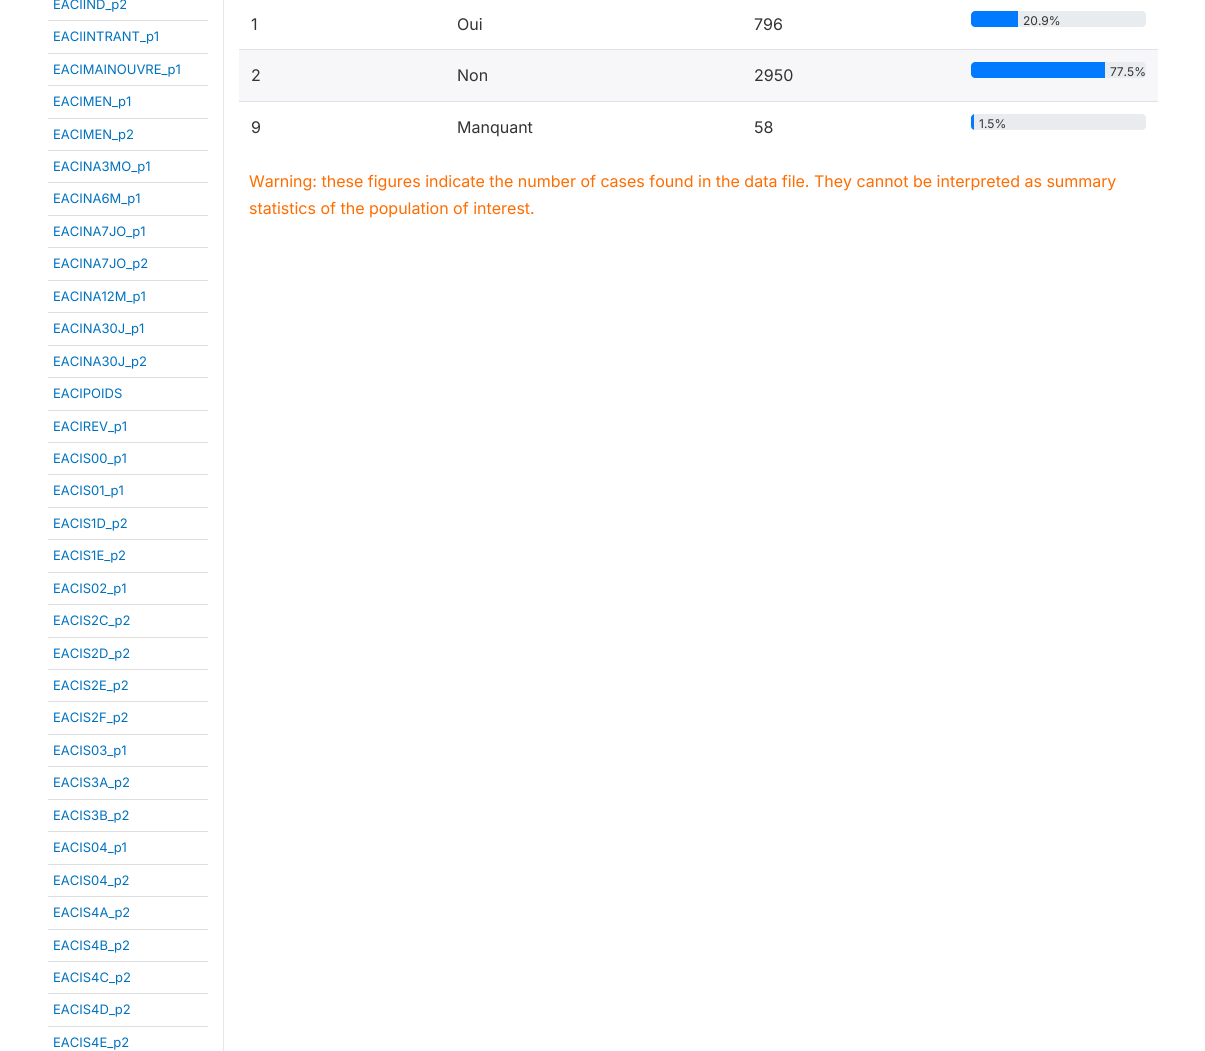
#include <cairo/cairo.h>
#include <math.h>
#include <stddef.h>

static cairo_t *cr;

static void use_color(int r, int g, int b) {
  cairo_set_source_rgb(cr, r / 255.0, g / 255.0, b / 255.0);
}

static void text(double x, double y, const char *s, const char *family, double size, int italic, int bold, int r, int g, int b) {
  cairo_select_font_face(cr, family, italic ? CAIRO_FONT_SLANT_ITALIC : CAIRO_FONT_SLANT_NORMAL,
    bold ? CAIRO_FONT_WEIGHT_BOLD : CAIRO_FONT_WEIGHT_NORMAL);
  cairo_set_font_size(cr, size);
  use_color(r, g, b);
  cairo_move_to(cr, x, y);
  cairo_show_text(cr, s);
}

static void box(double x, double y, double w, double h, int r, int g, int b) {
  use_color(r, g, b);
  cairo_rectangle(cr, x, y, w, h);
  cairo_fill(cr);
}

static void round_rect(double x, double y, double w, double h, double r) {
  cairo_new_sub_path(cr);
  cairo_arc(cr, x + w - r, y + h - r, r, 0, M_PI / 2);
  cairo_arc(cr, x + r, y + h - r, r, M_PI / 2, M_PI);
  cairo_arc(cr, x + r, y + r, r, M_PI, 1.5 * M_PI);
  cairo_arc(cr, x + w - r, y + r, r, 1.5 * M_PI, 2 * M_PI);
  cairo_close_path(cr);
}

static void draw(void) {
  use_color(255, 255, 255);
  cairo_paint(cr);
  box(48, 20, 160, 1, 221, 221, 221);
  box(48, 53, 160, 1, 221, 221, 221);
  box(48, 85, 160, 1, 221, 221, 221);
  box(48, 118, 160, 1, 221, 221, 221);
  box(48, 150, 160, 1, 221, 221, 221);
  box(48, 182, 160, 1, 221, 221, 221);
  box(48, 215, 160, 1, 221, 221, 221);
  box(48, 247, 160, 1, 221, 221, 221);
  box(48, 280, 160, 1, 221, 221, 221);
  box(48, 312, 160, 1, 221, 221, 221);
  box(48, 345, 160, 1, 221, 221, 221);
  box(48, 377, 160, 1, 221, 221, 221);
  box(48, 410, 160, 1, 221, 221, 221);
  box(48, 442, 160, 1, 221, 221, 221);
  box(48, 474, 160, 1, 221, 221, 221);
  box(48, 507, 160, 1, 221, 221, 221);
  box(48, 539, 160, 1, 221, 221, 221);
  box(48, 572, 160, 1, 221, 221, 221);
  box(48, 604, 160, 1, 221, 221, 221);
  box(48, 637, 160, 1, 221, 221, 221);
  box(48, 669, 160, 1, 221, 221, 221);
  box(48, 701, 160, 1, 221, 221, 221);
  box(48, 734, 160, 1, 221, 221, 221);
  box(48, 766, 160, 1, 221, 221, 221);
  box(48, 799, 160, 1, 221, 221, 221);
  box(48, 831, 160, 1, 221, 221, 221);
  box(48, 864, 160, 1, 221, 221, 221);
  box(48, 896, 160, 1, 221, 221, 221);
  box(48, 929, 160, 1, 221, 221, 221);
  box(48, 961, 160, 1, 221, 221, 221);
  box(48, 993, 160, 1, 221, 221, 221);
  box(48, 1026, 160, 1, 221, 221, 221);
  box(223, 0, 1, 1051, 232, 232, 232);
  use_color(233, 236, 239);
  round_rect(971, 11, 175, 16, 4);
  cairo_fill(cr);
  use_color(0, 123, 255);
  cairo_new_path(cr);
  cairo_move_to(cr, 975, 11);
  cairo_line_to(cr, 1018, 11);
  cairo_line_to(cr, 1018, 27);
  cairo_line_to(cr, 975, 27);
  cairo_curve_to(cr, 973, 27, 971, 25, 971, 23);
  cairo_line_to(cr, 971, 15);
  cairo_curve_to(cr, 971, 13, 973, 11, 975, 11);
  cairo_close_path(cr);
  cairo_fill(cr);
  box(239, 50, 919, 51, 247, 247, 249);
  box(239, 49, 919, 1, 222, 226, 230);
  use_color(233, 236, 239);
  round_rect(971, 62, 175, 16, 4);
  cairo_fill(cr);
  use_color(0, 123, 255);
  cairo_new_path(cr);
  cairo_move_to(cr, 975, 62);
  cairo_line_to(cr, 1105, 62);
  cairo_line_to(cr, 1105, 78);
  cairo_line_to(cr, 975, 78);
  cairo_curve_to(cr, 973, 78, 971, 76, 971, 74);
  cairo_line_to(cr, 971, 66);
  cairo_curve_to(cr, 971, 64, 973, 62, 975, 62);
  cairo_close_path(cr);
  cairo_fill(cr);
  box(239, 101, 919, 1, 222, 226, 230);
  use_color(233, 236, 239);
  round_rect(971, 114, 175, 16, 4);
  cairo_fill(cr);
  cairo_save(cr);
  round_rect(971, 114, 175, 16, 4);
  cairo_clip(cr);
  box(971, 114, 3, 16, 0, 123, 255);
  cairo_restore(cr);
  text(53, 9, "EACIIND_p2", "Inter", 13, 0, 0, 0, 113, 189);
  text(53, 41, "EACIINTRANT_p1", "Inter", 13, 0, 0, 0, 113, 189);
  text(53, 74, "EACIMAINOUVRE_p1", "Inter", 13, 0, 0, 0, 113, 189);
  text(53, 106, "EACIMEN_p1", "Inter", 13, 0, 0, 0, 113, 189);
  text(53, 139, "EACIMEN_p2", "Inter", 13, 0, 0, 0, 113, 189);
  text(53, 171, "EACINA3MO_p1", "Inter", 13, 0, 0, 0, 113, 189);
  text(53, 203, "EACINA6M_p1", "Inter", 13, 0, 0, 0, 113, 189);
  text(53, 236, "EACINA7JO_p1", "Inter", 13, 0, 0, 0, 113, 189);
  text(53, 268, "EACINA7JO_p2", "Inter", 13, 0, 0, 0, 113, 189);
  text(53, 301, "EACINA12M_p1", "Inter", 13, 0, 0, 0, 113, 189);
  text(53, 333, "EACINA30J_p1", "Inter", 13, 0, 0, 0, 113, 189);
  text(53, 366, "EACINA30J_p2", "Inter", 13, 0, 0, 0, 113, 189);
  text(53, 398, "EACIPOIDS", "Inter", 13, 0, 0, 0, 113, 189);
  text(53, 431, "EACIREV_p1", "Inter", 13, 0, 0, 0, 113, 189);
  text(53, 463, "EACIS00_p1", "Inter", 13, 0, 0, 0, 113, 189);
  text(53, 495, "EACIS01_p1", "Inter", 13, 0, 0, 0, 113, 189);
  text(53, 528, "EACIS1D_p2", "Inter", 13, 0, 0, 0, 113, 189);
  text(53, 560, "EACIS1E_p2", "Inter", 13, 0, 0, 0, 113, 189);
  text(53, 593, "EACIS02_p1", "Inter", 13, 0, 0, 0, 113, 189);
  text(53, 625, "EACIS2C_p2", "Inter", 13, 0, 0, 0, 113, 189);
  text(53, 658, "EACIS2D_p2", "Inter", 13, 0, 0, 0, 113, 189);
  text(53, 690, "EACIS2E_p2", "Inter", 13, 0, 0, 0, 113, 189);
  text(53, 722, "EACIS2F_p2", "Inter", 13, 0, 0, 0, 113, 189);
  text(53, 755, "EACIS03_p1", "Inter", 13, 0, 0, 0, 113, 189);
  text(53, 787, "EACIS3A_p2", "Inter", 13, 0, 0, 0, 113, 189);
  text(53, 820, "EACIS3B_p2", "Inter", 13, 0, 0, 0, 113, 189);
  text(53, 852, "EACIS04_p1", "Inter", 13, 0, 0, 0, 113, 189);
  text(53, 885, "EACIS04_p2", "Inter", 13, 0, 0, 0, 113, 189);
  text(53, 917, "EACIS4A_p2", "Inter", 13, 0, 0, 0, 113, 189);
  text(53, 950, "EACIS4B_p2", "Inter", 13, 0, 0, 0, 113, 189);
  text(53, 982, "EACIS4C_p2", "Inter", 13, 0, 0, 0, 113, 189);
  text(53, 1014, "EACIS4D_p2", "Inter", 13, 0, 0, 0, 113, 189);
  text(53, 1047, "EACIS4E_p2", "Inter", 13, 0, 0, 0, 113, 189);
  text(251, 30, "1", "Inter", 16, 0, 0, 51, 51, 51);
  text(457, 30, "Oui", "Inter", 16, 0, 0, 51, 51, 51);
  text(754, 30, "796", "Inter", 16, 0, 0, 51, 51, 51);
  text(1023, 25, "20.9%", "Inter", 12, 0, 0, 51, 51, 51);
  text(251, 81, "2", "Inter", 16, 0, 0, 51, 51, 51);
  text(457, 81, "Non", "Inter", 16, 0, 0, 51, 51, 51);
  text(754, 81, "2950", "Inter", 16, 0, 0, 51, 51, 51);
  text(1110, 76, "77.5%", "Inter", 12, 0, 0, 51, 51, 51);
  text(251, 133, "9", "Inter", 16, 0, 0, 51, 51, 51);
  text(457, 133, "Manquant", "Inter", 16, 0, 0, 51, 51, 51);
  text(754, 133, "58", "Inter", 16, 0, 0, 51, 51, 51);
  text(979, 128, "1.5%", "Inter", 12, 0, 0, 51, 51, 51);
  text(249, 187, "Warning: these figures indicate the number of cases found in the data file. They cannot be interpreted as summary", "Inter", 16, 0, 0, 255, 108, 0);
  text(249, 214, "statistics of the population of interest.", "Inter", 16, 0, 0, 255, 108, 0);
}

int main(void) {
  cairo_surface_t *surface = cairo_image_surface_create(CAIRO_FORMAT_RGB24, 1205, 1051);
  cr = cairo_create(surface);
  cairo_font_options_t *options = cairo_font_options_create();
  cairo_font_options_set_hint_metrics(options, CAIRO_HINT_METRICS_OFF);
  cairo_font_options_set_hint_style(options, CAIRO_HINT_STYLE_NONE);
  cairo_set_font_options(cr, options);
  cairo_set_miter_limit(cr, 4);
  draw();
  cairo_surface_write_to_png(surface, "out.png");
  cairo_font_options_destroy(options);
  cairo_destroy(cr);
  cairo_surface_destroy(surface);
  return 0;
}
